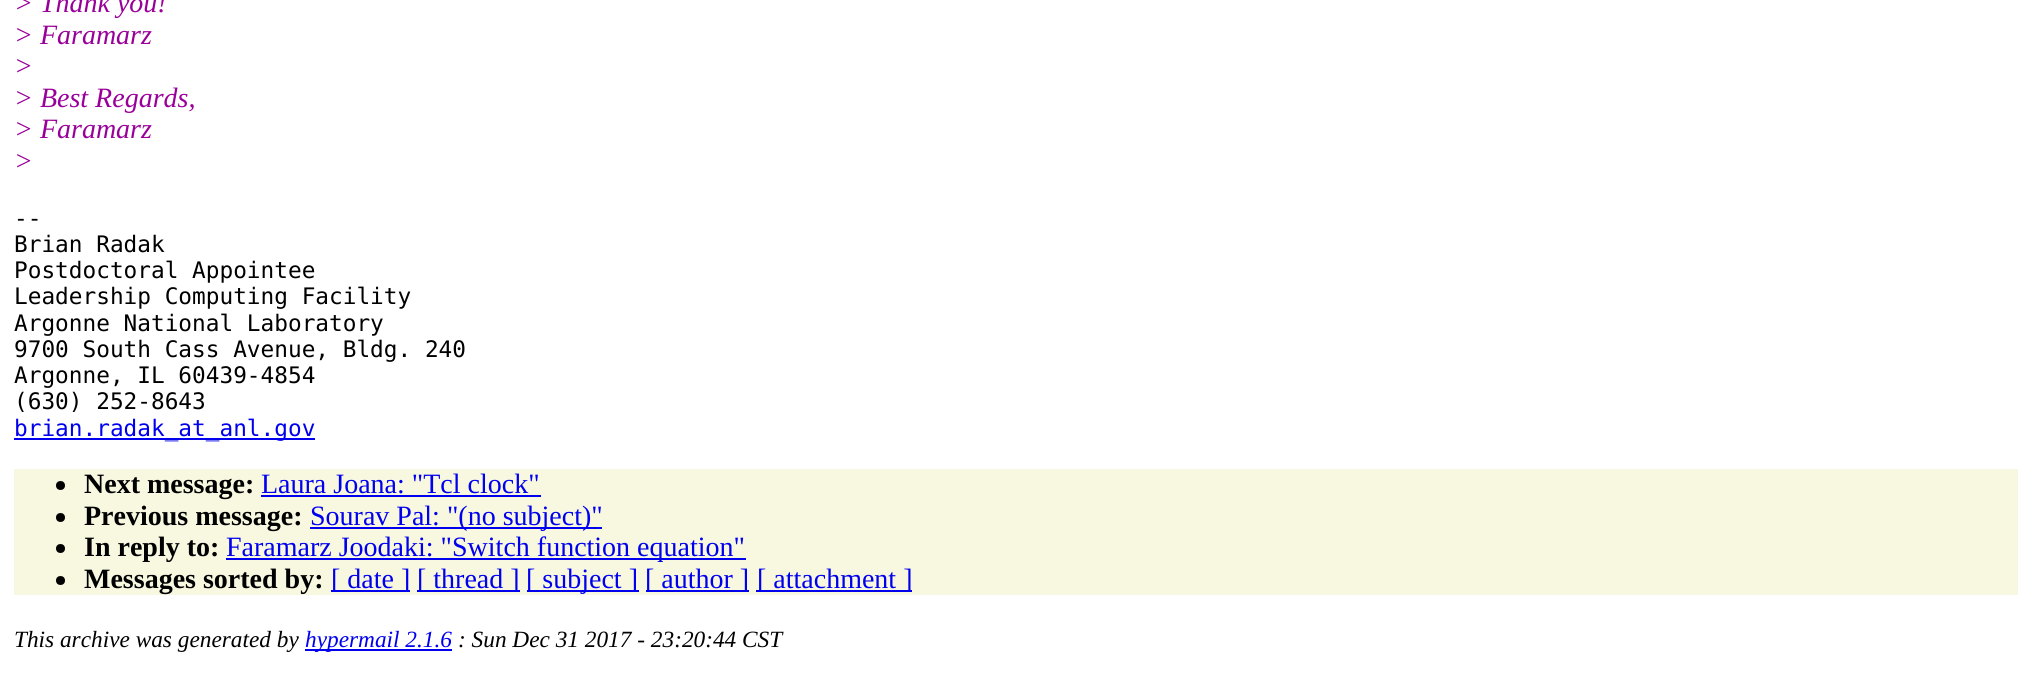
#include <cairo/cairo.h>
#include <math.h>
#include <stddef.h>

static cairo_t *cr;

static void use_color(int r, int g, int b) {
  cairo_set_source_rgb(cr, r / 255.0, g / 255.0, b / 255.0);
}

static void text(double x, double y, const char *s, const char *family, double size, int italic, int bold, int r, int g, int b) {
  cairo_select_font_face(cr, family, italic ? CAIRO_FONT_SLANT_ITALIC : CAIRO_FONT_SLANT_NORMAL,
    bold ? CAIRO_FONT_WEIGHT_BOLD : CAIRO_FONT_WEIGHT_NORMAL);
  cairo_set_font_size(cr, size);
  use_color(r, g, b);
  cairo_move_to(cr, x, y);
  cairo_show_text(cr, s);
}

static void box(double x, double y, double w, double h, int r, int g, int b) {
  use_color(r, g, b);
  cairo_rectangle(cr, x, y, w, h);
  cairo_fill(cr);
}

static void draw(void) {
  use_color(255, 255, 255);
  cairo_paint(cr);
  box(14, 438, 301, 2, 0, 0, 238);
  box(14, 469, 2004, 126, 248, 248, 224);
  use_color(0, 0, 0);
  cairo_arc(cr, 60.5, 485.5, 4.5, 0, 2 * M_PI);
  cairo_fill(cr);
  box(261, 495, 280, 2, 0, 0, 238);
  use_color(0, 0, 0);
  cairo_arc(cr, 60.5, 517.5, 4.5, 0, 2 * M_PI);
  cairo_fill(cr);
  box(310, 527, 292, 2, 0, 0, 238);
  use_color(0, 0, 0);
  cairo_arc(cr, 60.5, 548.5, 4.5, 0, 2 * M_PI);
  cairo_fill(cr);
  box(226, 558, 520, 2, 0, 0, 238);
  use_color(0, 0, 0);
  cairo_arc(cr, 60.5, 580.5, 4.5, 0, 2 * M_PI);
  cairo_fill(cr);
  box(331, 590, 79, 2, 0, 0, 238);
  box(417, 590, 103, 2, 0, 0, 238);
  box(527, 590, 112, 2, 0, 0, 238);
  box(646, 590, 103, 2, 0, 0, 238);
  box(756, 590, 156, 2, 0, 0, 238);
  box(305, 649, 147, 2, 0, 0, 238);
  text(14, 12, "> Thank you!", "Liberation Serif", 28, 1, 0, 153, 0, 153);
  text(14, 44, "> Faramarz", "Liberation Serif", 28, 1, 0, 153, 0, 153);
  text(14, 75, ">", "Liberation Serif", 28, 1, 0, 153, 0, 153);
  text(14, 107, "> Best Regards,", "Liberation Serif", 28, 1, 0, 153, 0, 153);
  text(14, 138, "> Faramarz", "Liberation Serif", 28, 1, 0, 153, 0, 153);
  text(14, 170, ">", "Liberation Serif", 28, 1, 0, 153, 0, 153);
  text(14, 226, "--", "DejaVu Sans Mono", 22.75, 0, 0, 0, 0, 0);
  text(14, 252, "Brian Radak", "DejaVu Sans Mono", 22.75, 0, 0, 0, 0, 0);
  text(14, 278, "Postdoctoral Appointee", "DejaVu Sans Mono", 22.75, 0, 0, 0, 0, 0);
  text(14, 304, "Leadership Computing Facility", "DejaVu Sans Mono", 22.75, 0, 0, 0, 0, 0);
  text(14, 331, "Argonne National Laboratory", "DejaVu Sans Mono", 22.75, 0, 0, 0, 0, 0);
  text(14, 357, "9700 South Cass Avenue, Bldg. 240", "DejaVu Sans Mono", 22.75, 0, 0, 0, 0, 0);
  text(14, 383, "Argonne, IL 60439-4854", "DejaVu Sans Mono", 22.75, 0, 0, 0, 0, 0);
  text(14, 409, "(630) 252-8643", "DejaVu Sans Mono", 22.75, 0, 0, 0, 0, 0);
  text(14, 436, "brian.radak_at_anl.gov", "DejaVu Sans Mono", 22.75, 0, 0, 0, 0, 238);
  text(84, 493, "Next message:", "Liberation Serif", 28, 0, 1, 0, 0, 0);
  text(261, 493, "Laura Joana: \"Tcl clock\"", "Liberation Serif", 28, 0, 0, 0, 0, 238);
  text(84, 525, "Previous message:", "Liberation Serif", 28, 0, 1, 0, 0, 0);
  text(310, 525, "Sourav Pal: \"(no subject)\"", "Liberation Serif", 28, 0, 0, 0, 0, 238);
  text(84, 556, "In reply to:", "Liberation Serif", 28, 0, 1, 0, 0, 0);
  text(226, 556, "Faramarz Joodaki: \"Switch function equation\"", "Liberation Serif", 28, 0, 0, 0, 0, 238);
  text(84, 588, "Messages sorted by:", "Liberation Serif", 28, 0, 1, 0, 0, 0);
  text(331, 588, "[ date ]", "Liberation Serif", 28, 0, 0, 0, 0, 238);
  text(417, 588, "[ thread ]", "Liberation Serif", 28, 0, 0, 0, 0, 238);
  text(526, 588, "[ subject ]", "Liberation Serif", 28, 0, 0, 0, 0, 238);
  text(645, 588, "[ author ]", "Liberation Serif", 28, 0, 0, 0, 0, 238);
  text(757, 588, "[ attachment ]", "Liberation Serif", 28, 0, 0, 0, 0, 238);
  text(14, 647, "This archive was generated by", "Liberation Serif", 23.3, 1, 0, 0, 0, 0);
  text(305, 647, "hypermail 2.1.6", "Liberation Serif", 23.3, 1, 0, 0, 0, 238);
  text(458, 647, ": Sun Dec 31 2017 - 23:20:44 CST", "Liberation Serif", 23.3, 1, 0, 0, 0, 0);
}

int main(void) {
  cairo_surface_t *surface = cairo_image_surface_create(CAIRO_FORMAT_RGB24, 2031, 682);
  cr = cairo_create(surface);
  cairo_font_options_t *options = cairo_font_options_create();
  cairo_font_options_set_hint_metrics(options, CAIRO_HINT_METRICS_OFF);
  cairo_font_options_set_hint_style(options, CAIRO_HINT_STYLE_NONE);
  cairo_set_font_options(cr, options);
  cairo_set_miter_limit(cr, 4);
  draw();
  cairo_surface_write_to_png(surface, "out.png");
  cairo_font_options_destroy(options);
  cairo_destroy(cr);
  cairo_surface_destroy(surface);
  return 0;
}
